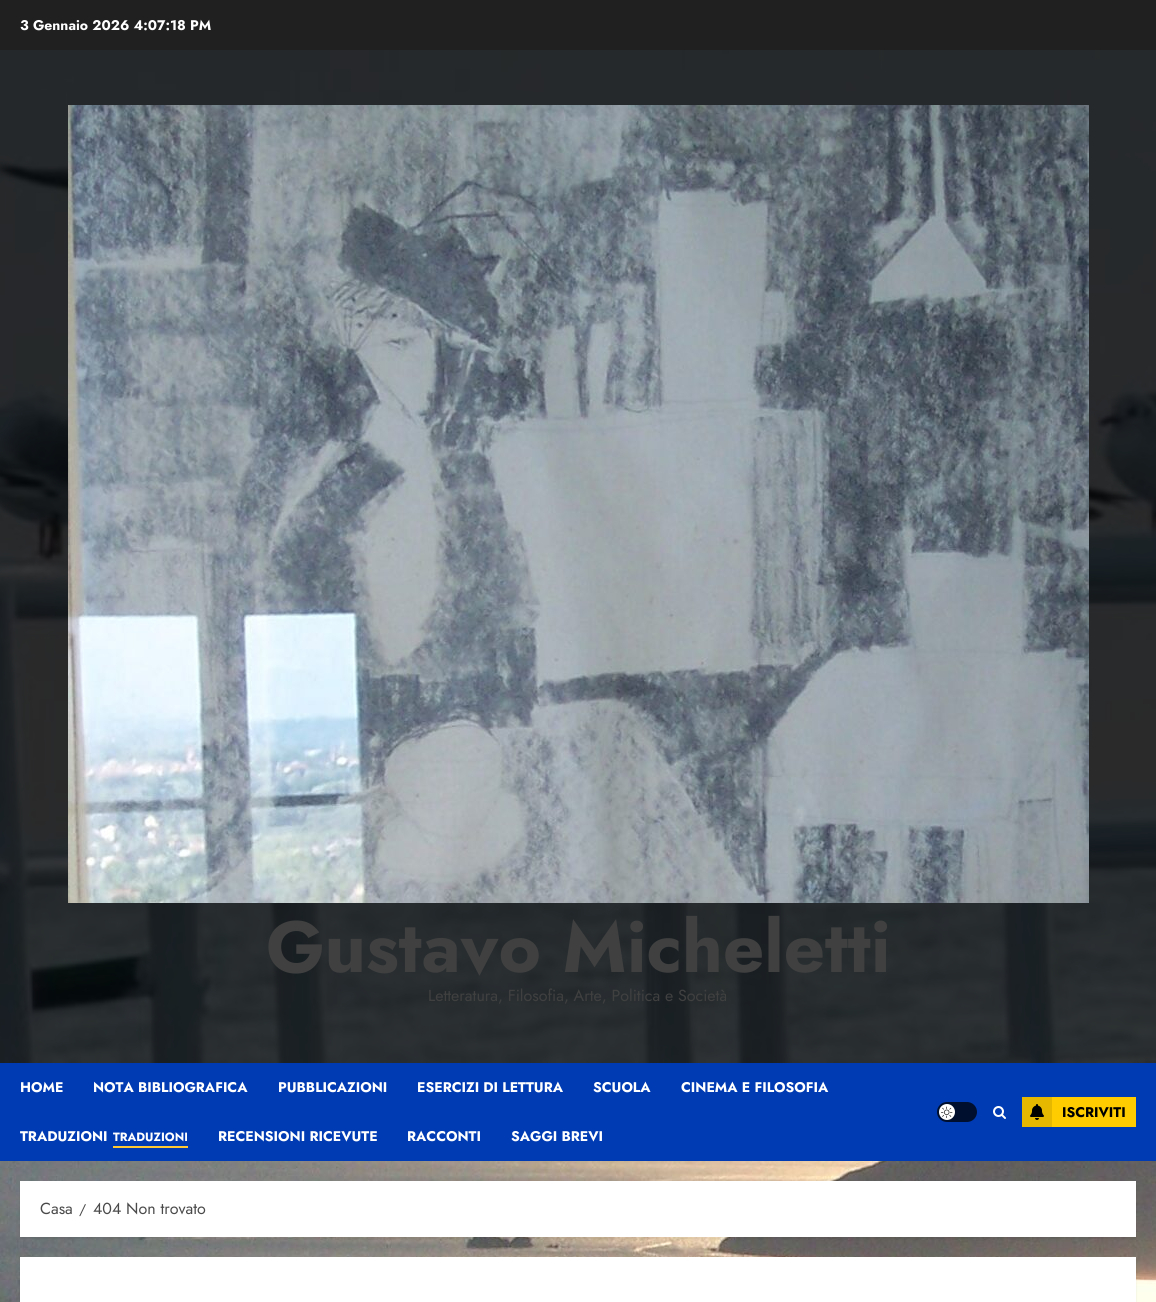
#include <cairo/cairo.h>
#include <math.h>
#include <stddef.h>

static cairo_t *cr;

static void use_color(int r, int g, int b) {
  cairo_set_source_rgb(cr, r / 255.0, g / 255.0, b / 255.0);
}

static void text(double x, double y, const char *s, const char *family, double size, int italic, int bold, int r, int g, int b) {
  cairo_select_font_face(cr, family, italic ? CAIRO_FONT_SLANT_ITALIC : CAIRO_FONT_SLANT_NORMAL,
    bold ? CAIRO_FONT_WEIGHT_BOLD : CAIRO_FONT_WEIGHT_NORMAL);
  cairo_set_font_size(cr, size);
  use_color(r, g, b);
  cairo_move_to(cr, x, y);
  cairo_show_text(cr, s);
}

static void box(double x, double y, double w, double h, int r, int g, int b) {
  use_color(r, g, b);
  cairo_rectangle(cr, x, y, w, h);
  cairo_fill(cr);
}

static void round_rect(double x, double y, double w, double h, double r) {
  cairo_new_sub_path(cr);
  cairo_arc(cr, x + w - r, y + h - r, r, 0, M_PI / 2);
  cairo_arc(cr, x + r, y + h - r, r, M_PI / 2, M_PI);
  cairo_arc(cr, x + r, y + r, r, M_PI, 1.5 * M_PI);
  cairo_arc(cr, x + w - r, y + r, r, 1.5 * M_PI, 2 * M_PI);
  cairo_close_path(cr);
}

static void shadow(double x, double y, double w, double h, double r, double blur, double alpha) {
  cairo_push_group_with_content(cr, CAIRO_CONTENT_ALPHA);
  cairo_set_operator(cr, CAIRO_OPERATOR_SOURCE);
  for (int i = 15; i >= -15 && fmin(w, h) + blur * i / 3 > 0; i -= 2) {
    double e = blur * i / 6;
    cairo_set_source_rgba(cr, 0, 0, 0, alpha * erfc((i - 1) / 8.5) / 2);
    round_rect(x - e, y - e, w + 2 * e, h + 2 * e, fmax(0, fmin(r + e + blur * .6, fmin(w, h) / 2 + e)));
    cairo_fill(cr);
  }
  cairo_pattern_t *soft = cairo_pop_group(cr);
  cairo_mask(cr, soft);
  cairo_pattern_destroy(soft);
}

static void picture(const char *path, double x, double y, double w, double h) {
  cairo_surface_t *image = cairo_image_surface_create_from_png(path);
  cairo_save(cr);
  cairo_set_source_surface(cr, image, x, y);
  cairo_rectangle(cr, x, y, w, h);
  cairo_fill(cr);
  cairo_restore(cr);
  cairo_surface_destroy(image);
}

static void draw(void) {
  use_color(255, 255, 255);
  cairo_paint(cr);
  picture("img_01.png", 0, 1161, 1156, 141);
  box(0, 0, 1156, 50, 32, 32, 32);
  picture("img_02.png", 0, 50, 1156, 1013);
  picture("img_03.png", 68, 105, 1021, 798);
  box(0, 1063, 1156, 98, 0, 59, 179);
  box(113, 1146, 75, 2, 255, 201, 52);
  use_color(0, 15, 45);
  round_rect(937, 1102, 40, 20, 10);
  cairo_fill(cr);
  use_color(255, 255, 255);
  cairo_arc(cr, 947, 1112, 8, 0, 2 * M_PI);
  cairo_fill(cr);
  picture("img_04.png", 941, 1106, 12, 12);
  picture("img_05.png", 993, 1106, 13, 13);
  box(1052, 1097, 84, 30, 255, 204, 0);
  box(1022, 1097, 30, 30, 230, 184, 0);
  picture("img_06.png", 1030, 1104, 14, 16);
  use_color(0, 0, 0);
  shadow(20, 1183, 1116, 56, 0, 1, 0.08);
  box(20, 1181, 1116, 56, 255, 255, 255);
  use_color(0, 0, 0);
  shadow(20, 1259, 1116, 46, 0, 1, 0.08);
  box(20, 1257, 1116, 45, 255, 255, 255);
  text(20, 30, "3 Gennaio 2026 4:07:18 PM", "Jost", 14, 0, 1, 255, 255, 255);
  text(266, 972, "Gustavo Micheletti", "Jost", 72, 0, 1, 64, 64, 64);
  text(428, 1001, "Letteratura, Filosofia, Arte, Politica e Società", "Jost", 16, 0, 0, 64, 64, 64);
  text(20, 1092, "HOME", "Jost", 14, 0, 1, 255, 255, 255);
  text(93, 1092, "NOTA BIBLIOGRAFICA", "Jost", 14, 0, 1, 255, 255, 255);
  text(278, 1092, "PUBBLICAZIONI", "Jost", 14, 0, 1, 255, 255, 255);
  text(417, 1092, "ESERCIZI DI LETTURA", "Jost", 14, 0, 1, 255, 255, 255);
  text(593, 1092, "SCUOLA", "Jost", 14, 0, 1, 255, 255, 255);
  text(681, 1092, "CINEMA E FILOSOFIA", "Jost", 14, 0, 1, 255, 255, 255);
  text(20, 1141, "TRADUZIONI", "Jost", 14, 0, 1, 255, 255, 255);
  text(113, 1141, "TRADUZIONI", "Jost", 12, 0, 1, 255, 255, 255);
  text(218, 1141, "RECENSIONI RICEVUTE", "Jost", 14, 0, 1, 255, 255, 255);
  text(407, 1141, "RACCONTI", "Jost", 14, 0, 1, 255, 255, 255);
  text(511, 1141, "SAGGI BREVI", "Jost", 14, 0, 1, 255, 255, 255);
  text(1062, 1117, "ISCRIVITI", "Jost", 14, 0, 1, 0, 0, 0);
  text(40, 1214, "Casa", "Jost", 16, 0, 0, 74, 74, 74);
  text(79, 1214, "/", "Jost", 14, 0, 0, 74, 74, 74);
  text(93, 1214, "404 Non trovato", "Jost", 16, 0, 0, 74, 74, 74);
}

int main(void) {
  cairo_surface_t *surface = cairo_image_surface_create(CAIRO_FORMAT_RGB24, 1156, 1302);
  cr = cairo_create(surface);
  cairo_font_options_t *options = cairo_font_options_create();
  cairo_font_options_set_hint_metrics(options, CAIRO_HINT_METRICS_OFF);
  cairo_font_options_set_hint_style(options, CAIRO_HINT_STYLE_NONE);
  cairo_set_font_options(cr, options);
  cairo_set_miter_limit(cr, 4);
  draw();
  cairo_surface_write_to_png(surface, "out.png");
  cairo_font_options_destroy(options);
  cairo_destroy(cr);
  cairo_surface_destroy(surface);
  return 0;
}
